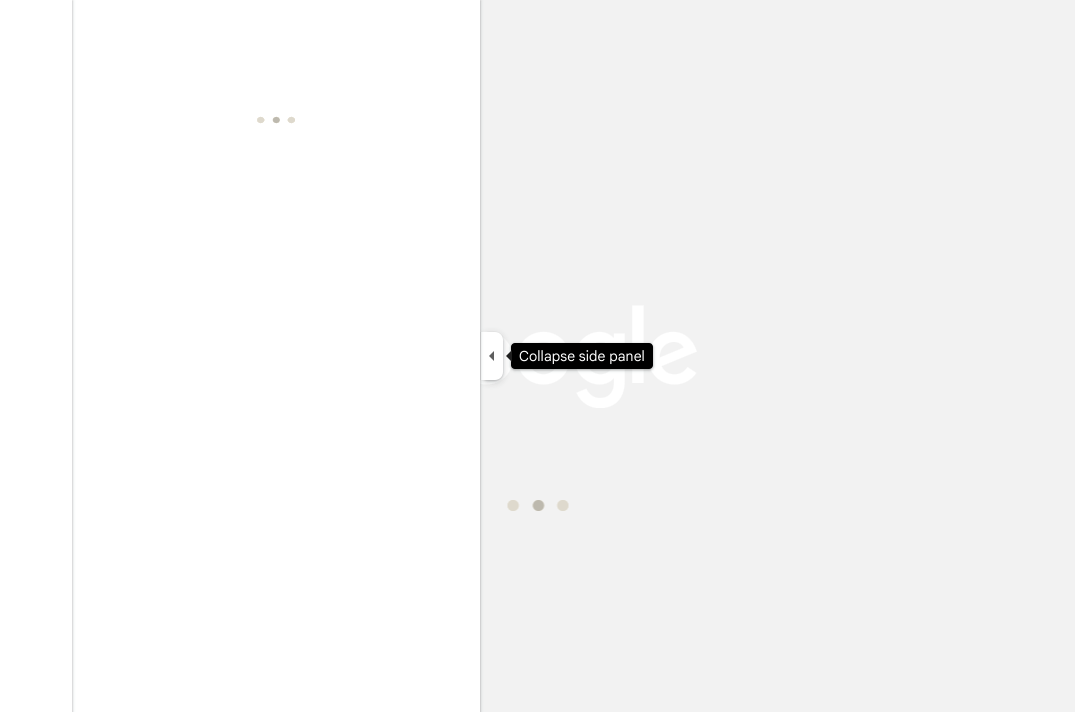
#include <cairo/cairo.h>
#include <math.h>
#include <stddef.h>

static cairo_t *cr;

static void use_color(int r, int g, int b) {
  cairo_set_source_rgb(cr, r / 255.0, g / 255.0, b / 255.0);
}

static void spaced_text(double x, double y, const char *s, double letter, double word) {
  cairo_move_to(cr, x, y);
  while (*s) {
    char ch[5] = {0};
    int n = 0;
    do ch[n++] = *s++; while ((*s & 0xC0) == 0x80);
    cairo_show_text(cr, ch);
    cairo_rel_move_to(cr, letter + word * (*ch == ' '), 0);
  }
}

static void box(double x, double y, double w, double h, int r, int g, int b) {
  use_color(r, g, b);
  cairo_rectangle(cr, x, y, w, h);
  cairo_fill(cr);
}

static void round_rect(double x, double y, double w, double h, double r) {
  cairo_new_sub_path(cr);
  cairo_arc(cr, x + w - r, y + h - r, r, 0, M_PI / 2);
  cairo_arc(cr, x + r, y + h - r, r, M_PI / 2, M_PI);
  cairo_arc(cr, x + r, y + r, r, M_PI, 1.5 * M_PI);
  cairo_arc(cr, x + w - r, y + r, r, 1.5 * M_PI, 2 * M_PI);
  cairo_close_path(cr);
}

static void shadow(double x, double y, double w, double h, double r, double blur, double alpha) {
  cairo_push_group_with_content(cr, CAIRO_CONTENT_ALPHA);
  cairo_set_operator(cr, CAIRO_OPERATOR_SOURCE);
  for (int i = 15; i >= -15 && fmin(w, h) + blur * i / 3 > 0; i -= 2) {
    double e = blur * i / 6;
    cairo_set_source_rgba(cr, 0, 0, 0, alpha * erfc((i - 1) / 8.5) / 2);
    round_rect(x - e, y - e, w + 2 * e, h + 2 * e, fmax(0, fmin(r + e + blur * .6, fmin(w, h) / 2 + e)));
    cairo_fill(cr);
  }
  cairo_pattern_t *soft = cairo_pop_group(cr);
  cairo_mask(cr, soft);
  cairo_pattern_destroy(soft);
}

static void picture(const char *path, double x, double y, double w, double h) {
  cairo_surface_t *image = cairo_image_surface_create_from_png(path);
  cairo_save(cr);
  cairo_set_source_surface(cr, image, x, y);
  cairo_rectangle(cr, x, y, w, h);
  cairo_fill(cr);
  cairo_restore(cr);
  cairo_surface_destroy(image);
}

static void draw(void) {
  use_color(242, 242, 242);
  cairo_paint(cr);
  picture("img_01.png", 480, 305, 217, 103);
  picture("img_02.png", 507, 500, 62, 11);
  use_color(60, 64, 67);
  shadow(478, 332, 27, 52, 10, 3, 0.15);
  shadow(480, 333, 23, 48, 8, 1, 0.3);
  use_color(255, 255, 255);
  cairo_new_path(cr);
  cairo_move_to(cr, 480, 332);
  cairo_line_to(cr, 495, 332);
  cairo_curve_to(cr, 499.5, 332, 503, 335.5, 503, 340);
  cairo_line_to(cr, 503, 372);
  cairo_curve_to(cr, 503, 376.5, 499.5, 380, 495, 380);
  cairo_line_to(cr, 480, 380);
  cairo_close_path(cr);
  cairo_fill(cr);
  box(480, 332, 1, 48, 227, 227, 227);
  use_color(60, 64, 67);
  shadow(71, 0, 410, 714, 0, 1.5, 0.15);
  shadow(72, 1, 408, 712, 0, 1, 0.3);
  box(72, 0, 408, 712, 255, 255, 255);
  use_color(60, 64, 67);
  shadow(-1, 0, 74, 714, 0, 1.5, 0.15);
  shadow(0, 1, 72, 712, 0, 1, 0.3);
  box(0, 0, 72, 712, 255, 255, 255);
  picture("img_03.png", 257, 116, 38, 8);
  use_color(94, 94, 94);
  cairo_new_path(cr);
  cairo_move_to(cr, 494, 361);
  cairo_line_to(cr, 489, 356);
  cairo_line_to(cr, 494, 351);
  cairo_close_path(cr);
  cairo_fill(cr);
  use_color(60, 64, 67);
  shadow(510, 343, 144, 28, 5, 1.5, 0.15);
  shadow(511, 344, 142, 26, 4, 1, 0.3);
  use_color(0, 0, 0);
  round_rect(511, 343, 142, 26, 4);
  cairo_fill(cr);
  use_color(31, 31, 31);
  cairo_new_path(cr);
  cairo_move_to(cr, 512, 350);
  cairo_line_to(cr, 512, 362);
  cairo_line_to(cr, 506, 356);
  cairo_close_path(cr);
  cairo_fill(cr);
  cairo_select_font_face(cr, "Google Sans", CAIRO_FONT_SLANT_NORMAL, CAIRO_FONT_WEIGHT_NORMAL);
  cairo_set_font_size(cr, 14);
  use_color(255, 255, 255);
  spaced_text(519, 361, "Collapse side panel", 0.1, 0);
}

int main(void) {
  cairo_surface_t *surface = cairo_image_surface_create(CAIRO_FORMAT_RGB24, 1075, 712);
  cr = cairo_create(surface);
  cairo_font_options_t *options = cairo_font_options_create();
  cairo_font_options_set_hint_metrics(options, CAIRO_HINT_METRICS_OFF);
  cairo_font_options_set_hint_style(options, CAIRO_HINT_STYLE_NONE);
  cairo_set_font_options(cr, options);
  cairo_set_miter_limit(cr, 4);
  draw();
  cairo_surface_write_to_png(surface, "out.png");
  cairo_font_options_destroy(options);
  cairo_destroy(cr);
  cairo_surface_destroy(surface);
  return 0;
}
